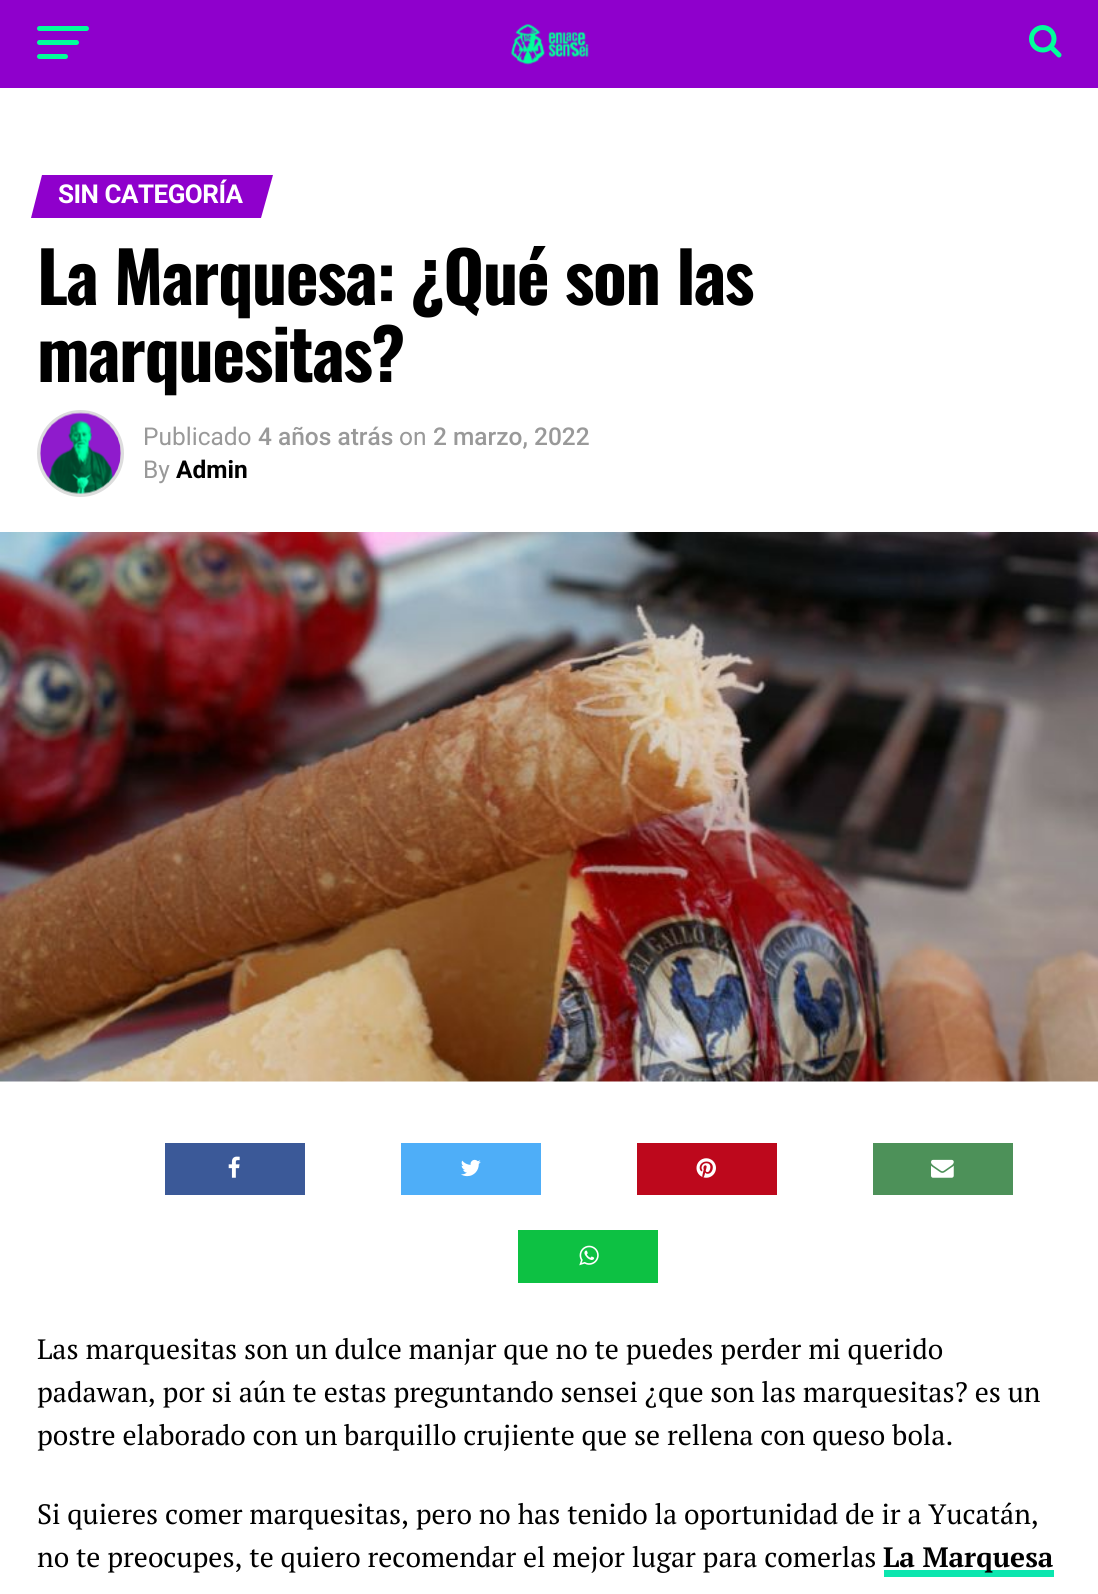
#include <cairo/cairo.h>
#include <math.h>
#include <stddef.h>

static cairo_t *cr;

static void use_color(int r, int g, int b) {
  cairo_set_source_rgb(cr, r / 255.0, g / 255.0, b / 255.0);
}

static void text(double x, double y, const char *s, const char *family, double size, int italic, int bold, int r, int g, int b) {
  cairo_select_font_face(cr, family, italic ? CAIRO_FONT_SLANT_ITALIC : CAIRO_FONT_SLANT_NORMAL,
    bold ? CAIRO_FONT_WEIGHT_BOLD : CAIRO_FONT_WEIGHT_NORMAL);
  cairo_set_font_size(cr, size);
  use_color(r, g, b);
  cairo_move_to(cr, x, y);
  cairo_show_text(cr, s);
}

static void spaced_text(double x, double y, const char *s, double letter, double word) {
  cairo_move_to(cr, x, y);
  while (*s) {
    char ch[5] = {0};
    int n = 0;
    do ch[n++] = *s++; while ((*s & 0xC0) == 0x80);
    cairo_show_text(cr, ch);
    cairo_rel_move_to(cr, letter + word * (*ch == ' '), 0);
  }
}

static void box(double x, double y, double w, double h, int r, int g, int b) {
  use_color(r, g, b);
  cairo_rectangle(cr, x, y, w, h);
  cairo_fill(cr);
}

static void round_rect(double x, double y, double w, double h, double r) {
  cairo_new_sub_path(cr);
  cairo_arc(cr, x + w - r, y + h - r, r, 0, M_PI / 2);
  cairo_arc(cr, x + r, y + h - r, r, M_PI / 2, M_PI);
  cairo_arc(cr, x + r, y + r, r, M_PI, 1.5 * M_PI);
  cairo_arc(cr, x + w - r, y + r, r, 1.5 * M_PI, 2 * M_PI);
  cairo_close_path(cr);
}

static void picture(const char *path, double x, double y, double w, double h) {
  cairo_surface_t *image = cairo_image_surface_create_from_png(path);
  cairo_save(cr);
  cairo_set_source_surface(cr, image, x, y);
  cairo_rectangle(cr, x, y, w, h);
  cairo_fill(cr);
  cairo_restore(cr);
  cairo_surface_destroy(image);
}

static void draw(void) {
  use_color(255, 255, 255);
  cairo_paint(cr);
  box(0, 0, 1098, 88, 143, 0, 204);
  use_color(0, 255, 154);
  round_rect(37, 26, 52, 5, 2.5);
  cairo_fill(cr);
  round_rect(37, 40, 42, 5, 2.5);
  cairo_fill(cr);
  round_rect(37, 54, 31, 5, 2.5);
  cairo_fill(cr);
  picture("img_01.png", 511, 24, 78, 41);
  picture("img_02.png", 1029, 25, 33, 33);
  use_color(143, 0, 204);
  cairo_new_path(cr);
  cairo_move_to(cr, 42, 175);
  cairo_line_to(cr, 273, 175);
  cairo_line_to(cr, 261, 218);
  cairo_line_to(cr, 31, 218);
  cairo_close_path(cr);
  cairo_fill(cr);
  cairo_arc(cr, 80.5, 453.5, 41.5, 0, 2 * M_PI);
  use_color(221, 221, 221);
  cairo_set_line_width(cr, 4);
  cairo_stroke(cr);
  picture("img_03.png", 40, 412, 81, 82);
  picture("img_04.png", 0, 532, 1098, 550);
  box(165, 1143, 140, 52, 59, 89, 152);
  picture("img_05.png", 228, 1156, 12, 22);
  box(401, 1143, 140, 52, 78, 174, 248);
  picture("img_06.png", 461, 1159, 20, 18);
  box(637, 1143, 140, 52, 189, 8, 28);
  picture("img_07.png", 696, 1158, 20, 20);
  box(873, 1143, 140, 52, 77, 145, 89);
  picture("img_08.png", 931, 1159, 23, 19);
  box(518, 1230, 140, 53, 13, 193, 67);
  picture("img_09.png", 579, 1245, 20, 21);
  box(884, 1570, 170, 7, 11, 230, 175);
  cairo_select_font_face(cr, "Roboto", CAIRO_FONT_SLANT_NORMAL, CAIRO_FONT_WEIGHT_BOLD);
  cairo_set_font_size(cr, 26);
  use_color(255, 255, 255);
  spaced_text(58, 203, "SIN CATEGORÍA", -0.5, 0);
  cairo_select_font_face(cr, "Oswald", CAIRO_FONT_SLANT_NORMAL, CAIRO_FONT_WEIGHT_BOLD);
  cairo_set_font_size(cr, 70);
  use_color(0, 0, 0);
  spaced_text(37, 305, "La Marquesa: ¿Qué son las", -1.4, 0);
  spaced_text(37, 382, "marquesitas?", -1.4, 0);
  text(143, 445, "Publicado", "Roboto", 24.5, 0, 0, 153, 153, 153);
  text(258, 445, "4 años atrás", "Roboto Medium", 24.5, 0, 0, 153, 153, 153);
  text(399, 445, "on", "Roboto", 24.5, 0, 0, 153, 153, 153);
  text(433, 445, "2 marzo, 2022", "Roboto Medium", 24.5, 0, 0, 153, 153, 153);
  text(143, 478, "By", "Roboto", 24.5, 0, 0, 153, 153, 153);
  text(176, 478, "Admin", "Roboto", 24.5, 0, 1, 0, 0, 0);
  text(37, 1359, "Las marquesitas son un dulce manjar que no te puedes perder mi querido", "PT Serif", 28, 0, 0, 0, 0, 0);
  text(37, 1402, "padawan, por si aún te estas preguntando sensei ¿que son las marquesitas? es un", "PT Serif", 28, 0, 0, 0, 0, 0);
  text(37, 1445, "postre elaborado con un barquillo crujiente que se rellena con queso bola.", "PT Serif", 28, 0, 0, 0, 0, 0);
  text(37, 1524, "Si quieres comer marquesitas, pero no has tenido la oportunidad de ir a Yucatán,", "PT Serif", 28, 0, 0, 0, 0, 0);
  text(37, 1567, "no te preocupes, te quiero recomendar el mejor lugar para comerlas", "PT Serif", 28, 0, 0, 0, 0, 0);
  text(883, 1567, "La Marquesa", "PT Serif", 28, 0, 1, 0, 0, 0);
}

int main(void) {
  cairo_surface_t *surface = cairo_image_surface_create(CAIRO_FORMAT_RGB24, 1098, 1594);
  cr = cairo_create(surface);
  cairo_font_options_t *options = cairo_font_options_create();
  cairo_font_options_set_hint_metrics(options, CAIRO_HINT_METRICS_OFF);
  cairo_font_options_set_hint_style(options, CAIRO_HINT_STYLE_NONE);
  cairo_set_font_options(cr, options);
  cairo_set_miter_limit(cr, 4);
  draw();
  cairo_surface_write_to_png(surface, "out.png");
  cairo_font_options_destroy(options);
  cairo_destroy(cr);
  cairo_surface_destroy(surface);
  return 0;
}
